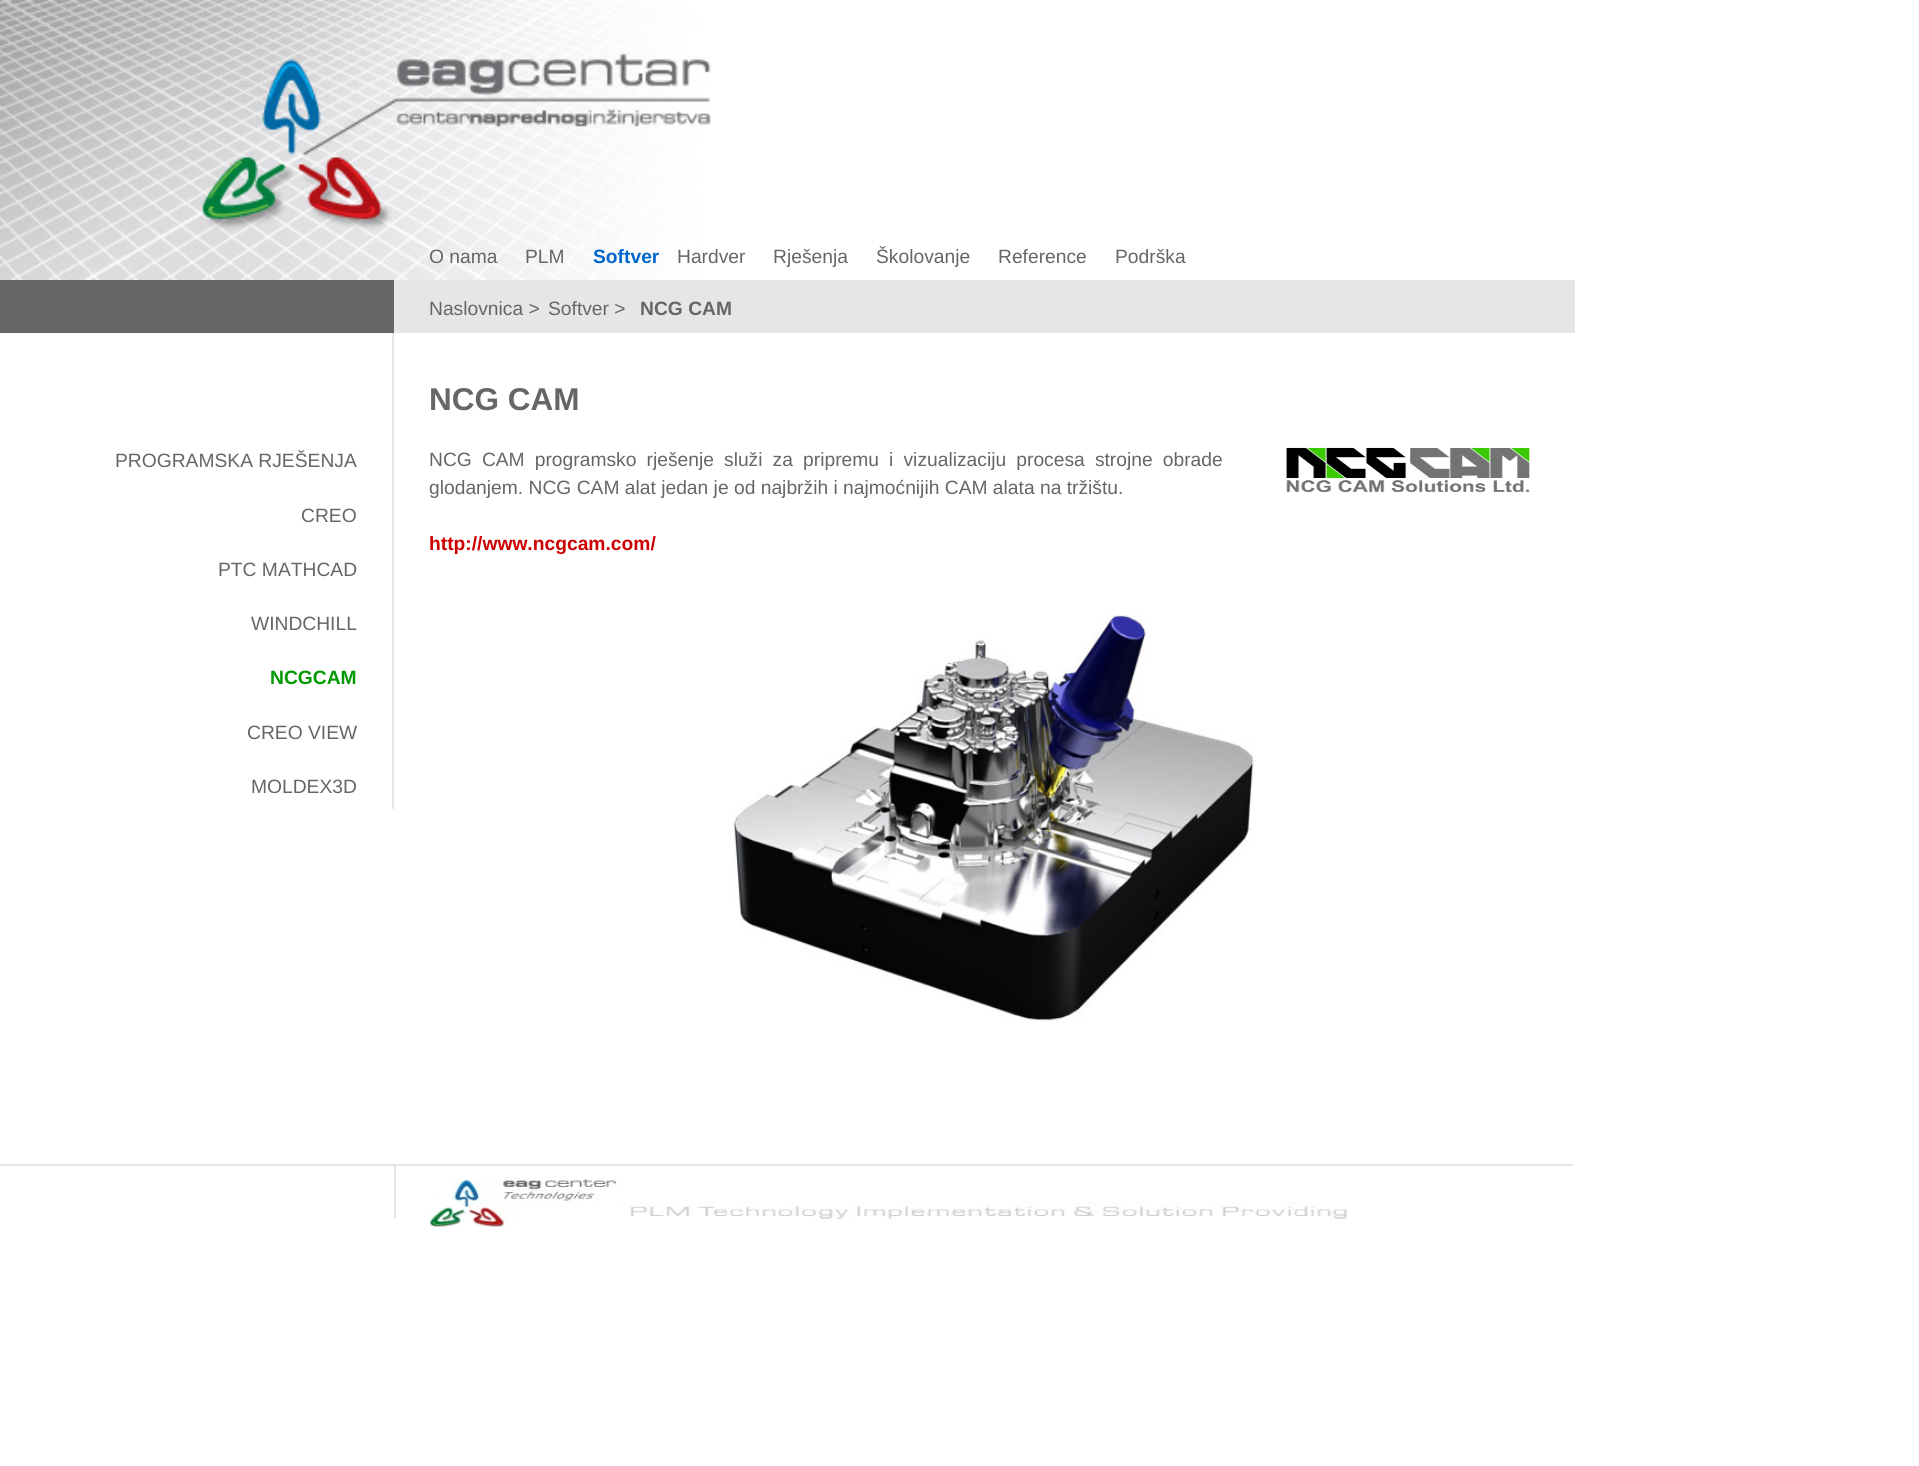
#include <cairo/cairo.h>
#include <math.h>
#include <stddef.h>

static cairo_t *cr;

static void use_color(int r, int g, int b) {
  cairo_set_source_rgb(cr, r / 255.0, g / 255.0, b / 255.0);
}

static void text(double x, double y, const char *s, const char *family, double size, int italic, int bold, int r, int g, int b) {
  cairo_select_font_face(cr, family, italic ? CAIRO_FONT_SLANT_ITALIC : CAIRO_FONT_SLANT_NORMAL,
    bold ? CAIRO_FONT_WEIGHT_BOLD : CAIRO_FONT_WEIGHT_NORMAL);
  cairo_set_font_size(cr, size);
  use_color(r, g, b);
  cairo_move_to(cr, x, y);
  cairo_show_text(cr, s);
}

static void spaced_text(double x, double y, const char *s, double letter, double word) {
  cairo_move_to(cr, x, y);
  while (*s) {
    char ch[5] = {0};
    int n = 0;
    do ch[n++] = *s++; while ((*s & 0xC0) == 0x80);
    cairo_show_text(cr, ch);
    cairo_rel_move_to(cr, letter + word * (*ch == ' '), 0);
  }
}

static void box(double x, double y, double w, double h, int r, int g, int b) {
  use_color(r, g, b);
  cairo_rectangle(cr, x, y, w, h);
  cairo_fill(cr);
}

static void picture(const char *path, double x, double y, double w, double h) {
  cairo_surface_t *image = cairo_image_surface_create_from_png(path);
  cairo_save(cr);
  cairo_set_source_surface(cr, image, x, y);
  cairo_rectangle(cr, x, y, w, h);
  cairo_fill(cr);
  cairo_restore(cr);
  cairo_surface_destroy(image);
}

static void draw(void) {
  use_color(255, 255, 255);
  cairo_paint(cr);
  picture("img_01.png", 0, 0, 711, 280);
  box(394, 280, 1181, 53, 230, 230, 230);
  box(0, 280, 394, 53, 102, 102, 102);
  box(392, 333, 2, 476, 230, 230, 230);
  picture("img_02.png", 1286, 447, 244, 46);
  picture("img_03.png", 732, 612, 522, 409);
  box(0, 1164, 1573, 2, 230, 230, 230);
  box(394, 1166, 2, 52, 230, 230, 230);
  picture("img_04.png", 430, 1179, 918, 48);
  text(429, 263, "O nama", "Liberation Sans", 19.25, 0, 0, 102, 102, 102);
  text(525, 263, "PLM", "Liberation Sans", 19.25, 0, 0, 102, 102, 102);
  text(593, 263, "Softver", "Liberation Sans", 19.25, 0, 1, 0, 102, 204);
  text(677, 263, "Hardver", "Liberation Sans", 19.25, 0, 0, 102, 102, 102);
  text(773, 263, "Rješenja", "Liberation Sans", 19.25, 0, 0, 102, 102, 102);
  text(876, 263, "Školovanje", "Liberation Sans", 19.25, 0, 0, 102, 102, 102);
  text(998, 263, "Reference", "Liberation Sans", 19.25, 0, 0, 102, 102, 102);
  text(1115, 263, "Podrška", "Liberation Sans", 19.25, 0, 0, 102, 102, 102);
  text(429, 315, "Naslovnica >", "Liberation Sans", 19.25, 0, 0, 102, 102, 102);
  text(548, 315, "Softver >", "Liberation Sans", 19.25, 0, 0, 102, 102, 102);
  text(640, 315, "NCG CAM", "Liberation Sans", 19.25, 0, 1, 102, 102, 102);
  text(115, 467, "PROGRAMSKA RJEŠENJA", "Liberation Sans", 19.25, 0, 0, 102, 102, 102);
  text(301, 522, "CREO", "Liberation Sans", 19.25, 0, 0, 102, 102, 102);
  text(218, 576, "PTC MATHCAD", "Liberation Sans", 19.25, 0, 0, 102, 102, 102);
  text(251, 630, "WINDCHILL", "Liberation Sans", 19.25, 0, 0, 102, 102, 102);
  text(270, 684, "NCGCAM", "Liberation Sans", 19.25, 0, 1, 0, 153, 0);
  text(247, 739, "CREO VIEW", "Liberation Sans", 19.25, 0, 0, 102, 102, 102);
  text(251, 793, "MOLDEX3D", "Liberation Sans", 19.25, 0, 0, 102, 102, 102);
  text(429, 410, "NCG CAM", "Liberation Sans", 31.5, 0, 1, 102, 102, 102);
  cairo_select_font_face(cr, "Liberation Sans", CAIRO_FONT_SLANT_NORMAL, CAIRO_FONT_WEIGHT_NORMAL);
  cairo_set_font_size(cr, 19.25);
  spaced_text(429, 466, "NCG CAM programsko rješenje služi za pripremu i vizualizaciju procesa strojne obrade", 0, 4.75);
  text(429, 494, "glodanjem. NCG CAM alat jedan je od najbržih i najmoćnijih CAM alata na tržištu.", "Liberation Sans", 19.25, 0, 0, 102, 102, 102);
  text(429, 550, "http://www.ncgcam.com/", "Liberation Sans", 19.25, 0, 1, 204, 0, 0);
}

int main(void) {
  cairo_surface_t *surface = cairo_image_surface_create(CAIRO_FORMAT_RGB24, 1919, 1466);
  cr = cairo_create(surface);
  cairo_font_options_t *options = cairo_font_options_create();
  cairo_font_options_set_hint_metrics(options, CAIRO_HINT_METRICS_OFF);
  cairo_font_options_set_hint_style(options, CAIRO_HINT_STYLE_NONE);
  cairo_set_font_options(cr, options);
  cairo_set_miter_limit(cr, 4);
  draw();
  cairo_surface_write_to_png(surface, "out.png");
  cairo_font_options_destroy(options);
  cairo_destroy(cr);
  cairo_surface_destroy(surface);
  return 0;
}
